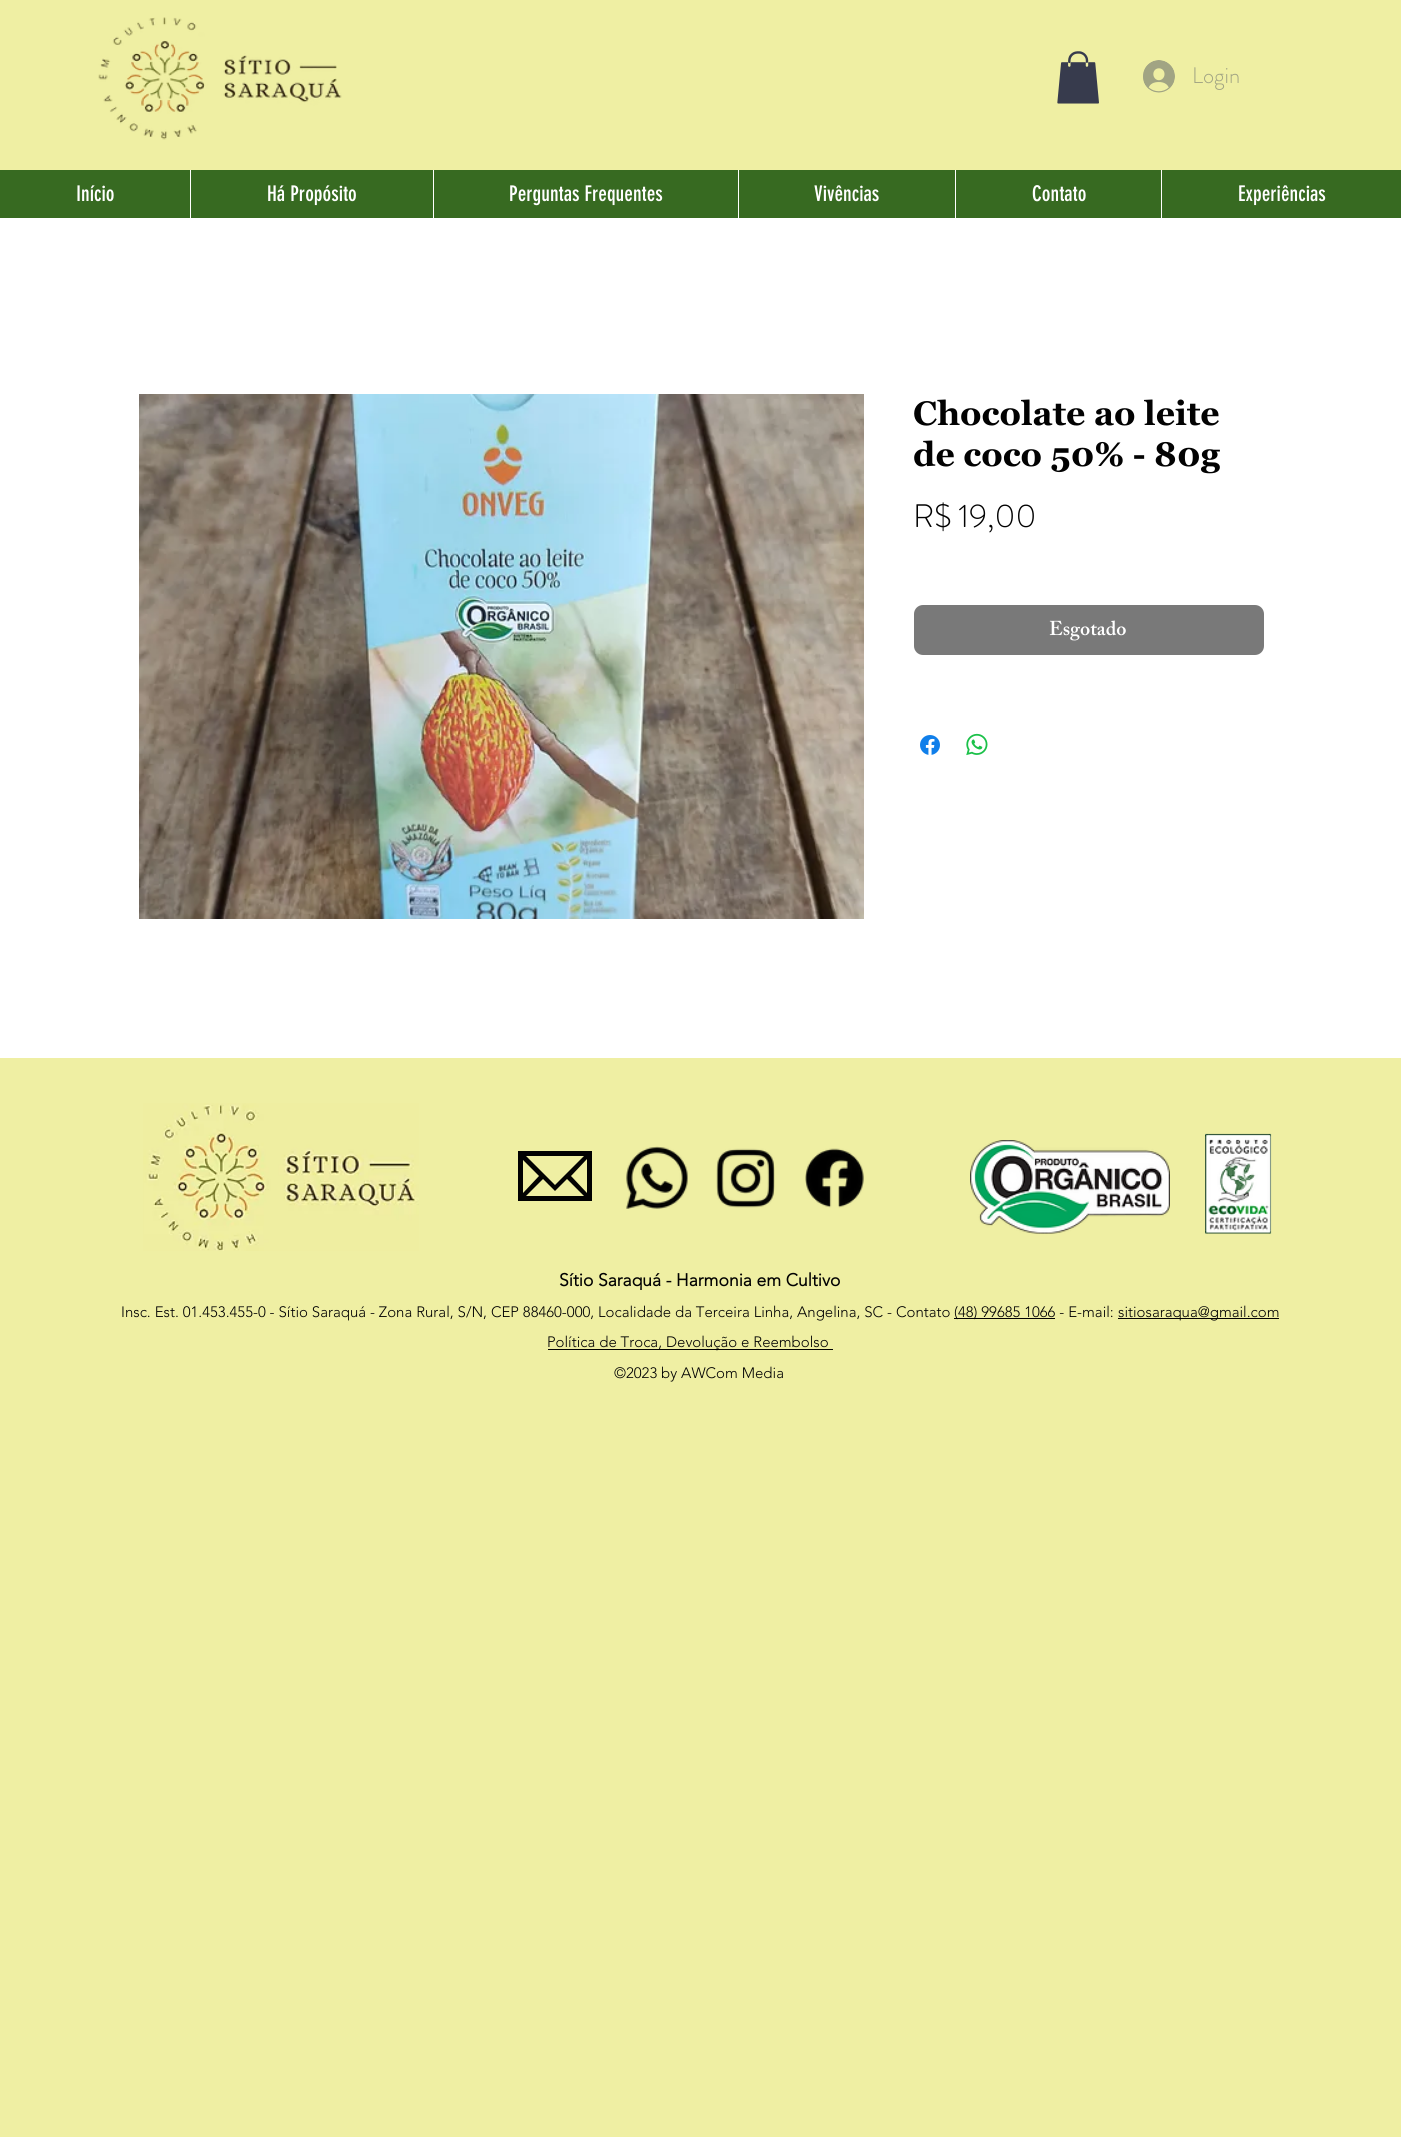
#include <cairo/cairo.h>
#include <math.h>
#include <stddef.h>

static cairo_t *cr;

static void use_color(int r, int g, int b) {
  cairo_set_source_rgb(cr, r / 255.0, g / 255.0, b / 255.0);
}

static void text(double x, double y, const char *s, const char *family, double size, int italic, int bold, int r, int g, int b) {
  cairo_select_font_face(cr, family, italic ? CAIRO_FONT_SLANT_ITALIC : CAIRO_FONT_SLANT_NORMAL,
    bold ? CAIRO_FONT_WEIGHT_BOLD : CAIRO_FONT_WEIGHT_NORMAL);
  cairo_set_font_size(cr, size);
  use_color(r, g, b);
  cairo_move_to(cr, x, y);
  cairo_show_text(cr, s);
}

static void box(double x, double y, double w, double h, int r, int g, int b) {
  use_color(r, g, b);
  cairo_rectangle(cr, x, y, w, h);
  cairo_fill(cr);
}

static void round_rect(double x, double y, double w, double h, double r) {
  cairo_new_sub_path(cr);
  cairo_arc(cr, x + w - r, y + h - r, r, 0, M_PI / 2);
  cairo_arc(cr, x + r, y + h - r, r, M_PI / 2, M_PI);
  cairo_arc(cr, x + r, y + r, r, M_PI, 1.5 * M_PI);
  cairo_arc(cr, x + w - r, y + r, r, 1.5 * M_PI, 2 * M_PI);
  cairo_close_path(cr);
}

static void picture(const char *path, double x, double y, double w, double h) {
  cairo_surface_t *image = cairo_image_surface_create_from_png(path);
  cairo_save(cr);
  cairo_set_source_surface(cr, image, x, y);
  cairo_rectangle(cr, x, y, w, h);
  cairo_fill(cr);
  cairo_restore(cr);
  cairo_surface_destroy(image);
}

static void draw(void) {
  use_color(239, 239, 163);
  cairo_paint(cr);
  picture("img_01.png", 98, 17, 244, 123);
  picture("img_02.png", 1057, 51, 42, 53);
  picture("img_03.png", 1143, 60, 32, 33);
  box(0, 170, 1401, 48, 55, 106, 33);
  box(190, 170, 1, 48, 255, 255, 255);
  box(433, 170, 1, 48, 255, 255, 255);
  box(738, 170, 1, 48, 255, 255, 255);
  box(955, 170, 1, 48, 255, 255, 255);
  box(1161, 170, 1, 48, 255, 255, 255);
  box(0, 218, 1401, 840, 255, 255, 255);
  picture("img_04.png", 139, 394, 725, 525);
  use_color(121, 121, 121);
  round_rect(914, 605, 350, 50, 9);
  cairo_fill(cr);
  picture("img_05.png", 920, 735, 20, 20);
  picture("img_06.png", 966, 733, 22, 23);
  picture("img_07.png", 143, 1103, 276, 148);
  use_color(2, 2, 2);
  cairo_new_path(cr);
  cairo_move_to(cr, 518, 1151);
  cairo_line_to(cr, 518, 1201);
  cairo_line_to(cr, 592, 1201);
  cairo_line_to(cr, 592, 1151);
  cairo_close_path(cr);
  cairo_move_to(cr, 555, 1185);
  cairo_line_to(cr, 526, 1156);
  cairo_line_to(cr, 584, 1156);
  cairo_close_path(cr);
  cairo_move_to(cr, 539, 1176);
  cairo_line_to(cr, 523, 1193);
  cairo_line_to(cr, 523, 1160);
  cairo_close_path(cr);
  cairo_move_to(cr, 543, 1179);
  cairo_line_to(cr, 555, 1191);
  cairo_line_to(cr, 567, 1179);
  cairo_line_to(cr, 584, 1196);
  cairo_line_to(cr, 526, 1196);
  cairo_close_path(cr);
  cairo_move_to(cr, 571, 1176);
  cairo_line_to(cr, 587, 1159);
  cairo_line_to(cr, 587, 1193);
  cairo_close_path(cr);
  cairo_fill(cr);
  picture("img_08.png", 626, 1146, 62, 63);
  picture("img_09.png", 716, 1148, 59, 60);
  picture("img_10.png", 805, 1148, 59, 60);
  picture("img_11.png", 970, 1140, 200, 94);
  picture("img_12.png", 1205, 1133, 67, 101);
  box(954, 1318, 101, 1, 2, 2, 2);
  box(1118, 1318, 161, 1, 2, 2, 2);
  box(548, 1349, 285, 1, 2, 2, 2);
  text(1192, 83, "Login", "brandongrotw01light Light", 22.5, 0, 0, 161, 164, 131);
  text(76, 201, "Início", "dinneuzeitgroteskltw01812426", 21.25, 0, 0, 255, 255, 255);
  text(267, 201, "Há Propósito", "dinneuzeitgroteskltw01812426", 21.25, 0, 0, 255, 255, 255);
  text(509, 201, "Perguntas Frequentes", "dinneuzeitgroteskltw01812426", 21.25, 0, 0, 255, 255, 255);
  text(814, 201, "Vivências", "dinneuzeitgroteskltw01812426", 21.25, 0, 0, 255, 255, 255);
  text(1032, 201, "Contato", "dinneuzeitgroteskltw01812426", 21.25, 0, 0, 255, 255, 255);
  text(1238, 201, "Experiências", "dinneuzeitgroteskltw01812426", 21.25, 0, 0, 255, 255, 255);
  text(913, 425, "Chocolate ao leite", "Georgia", 33.75, 0, 1, 2, 2, 2);
  text(913, 466, "de coco 50% - 80g", "Georgia", 33.75, 0, 1, 2, 2, 2);
  text(913, 527, "R$ 19,00", "brandongrotw01light Light", 32.5, 0, 0, 2, 2, 2);
  text(1049, 635, "Esgotado", "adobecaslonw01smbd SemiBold", 20, 0, 0, 255, 255, 255);
  text(559, 1286, "Sítio Saraquá - Harmonia em Cultivo", "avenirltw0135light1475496", 17.5, 0, 1, 2, 2, 2);
  text(121, 1317, "Insc. Est. 01.453.455-0 - Sítio Saraquá - Zona Rural, S/N, CEP 88460-000, Localidade da Terceira Linha, Angelina, SC - Contato", "avenirltw0135light1475496 Light", 15, 0, 0, 2, 2, 2);
  text(954, 1317, "(48) 99685 1066 - E-mail:", "avenirltw0135light1475496 Light", 15, 0, 0, 2, 2, 2);
  text(1118, 1317, "sitiosaraqua@gmail.com", "avenirltw0135light1475496 Light", 15, 0, 0, 2, 2, 2);
  text(547, 1347, "Política de Troca, Devolução e Reembolso", "avenirltw0135light1475496 Light", 15, 0, 0, 2, 2, 2);
  text(614, 1378, "©2023 by AWCom Media", "avenirltw0135light1475496 Light", 15, 0, 0, 2, 2, 2);
}

int main(void) {
  cairo_surface_t *surface = cairo_image_surface_create(CAIRO_FORMAT_RGB24, 1401, 2137);
  cr = cairo_create(surface);
  cairo_font_options_t *options = cairo_font_options_create();
  cairo_font_options_set_hint_metrics(options, CAIRO_HINT_METRICS_OFF);
  cairo_font_options_set_hint_style(options, CAIRO_HINT_STYLE_NONE);
  cairo_set_font_options(cr, options);
  cairo_set_miter_limit(cr, 4);
  draw();
  cairo_surface_write_to_png(surface, "out.png");
  cairo_font_options_destroy(options);
  cairo_destroy(cr);
  cairo_surface_destroy(surface);
  return 0;
}
